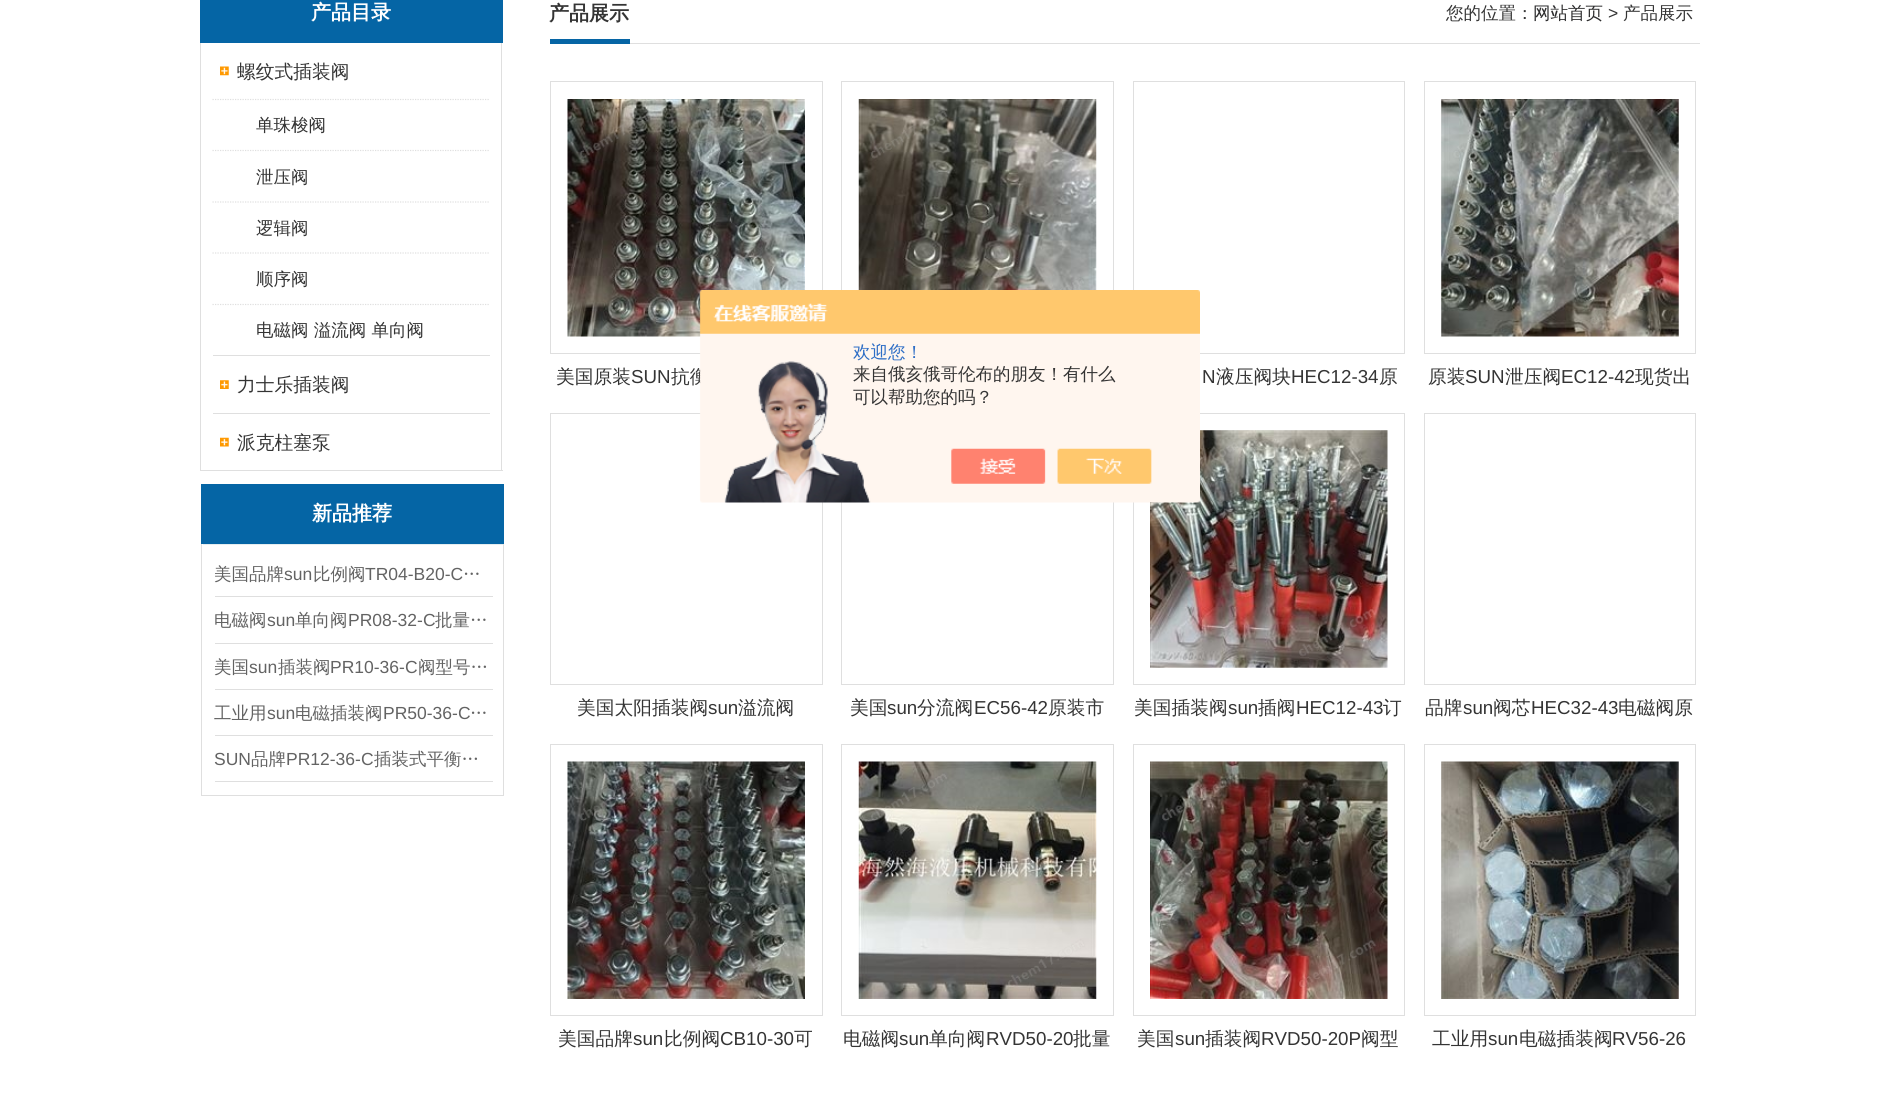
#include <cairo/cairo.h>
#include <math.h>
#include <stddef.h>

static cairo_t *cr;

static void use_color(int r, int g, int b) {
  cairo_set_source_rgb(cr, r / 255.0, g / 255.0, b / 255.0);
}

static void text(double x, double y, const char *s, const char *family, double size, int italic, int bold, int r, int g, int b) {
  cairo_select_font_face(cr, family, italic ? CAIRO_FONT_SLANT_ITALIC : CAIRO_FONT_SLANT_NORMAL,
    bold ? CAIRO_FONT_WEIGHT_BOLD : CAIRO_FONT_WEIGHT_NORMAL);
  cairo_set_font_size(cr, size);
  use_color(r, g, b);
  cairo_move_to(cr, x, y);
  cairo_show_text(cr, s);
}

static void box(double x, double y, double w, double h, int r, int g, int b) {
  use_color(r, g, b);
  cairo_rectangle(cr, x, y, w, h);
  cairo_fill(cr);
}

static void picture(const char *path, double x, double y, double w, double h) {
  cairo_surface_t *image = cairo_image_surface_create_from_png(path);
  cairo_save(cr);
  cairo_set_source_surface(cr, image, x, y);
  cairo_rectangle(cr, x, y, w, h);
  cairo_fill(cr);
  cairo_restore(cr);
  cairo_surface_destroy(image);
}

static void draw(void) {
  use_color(255, 255, 255);
  cairo_paint(cr);
  box(200, 0, 303, 43, 5, 101, 165);
  box(501, 43, 1, 428, 223, 223, 223);
  box(200, 470, 303, 1, 223, 223, 223);
  box(200, 43, 1, 428, 223, 223, 223);
  box(213, 355, 277, 1, 223, 223, 223);
  picture("img_01.png", 220, 66, 9, 10);
  cairo_new_path(cr);
  cairo_move_to(cr, 212.5, 99.5);
  cairo_line_to(cr, 490, 99.5);
  cairo_set_line_width(cr, 1.2);
  cairo_set_dash(cr, (double[]){1.25, 1.25}, 2, 0);
  cairo_stroke(cr);
  cairo_new_path(cr);
  cairo_move_to(cr, 212.5, 150.5);
  cairo_line_to(cr, 490, 150.5);
  cairo_stroke(cr);
  cairo_new_path(cr);
  cairo_move_to(cr, 212.5, 202);
  cairo_line_to(cr, 490, 202);
  cairo_stroke(cr);
  cairo_new_path(cr);
  cairo_move_to(cr, 212.5, 253);
  cairo_line_to(cr, 490, 253);
  cairo_stroke(cr);
  cairo_new_path(cr);
  cairo_move_to(cr, 212.5, 304.5);
  cairo_line_to(cr, 490, 304.5);
  cairo_stroke(cr);
  box(213, 413, 277, 1, 223, 223, 223);
  picture("img_02.png", 220, 380, 9, 9);
  picture("img_03.png", 220, 437, 9, 10);
  box(201, 484, 303, 60, 5, 101, 165);
  box(503, 544, 1, 252, 223, 223, 223);
  box(201, 795, 303, 1, 223, 223, 223);
  box(201, 544, 1, 252, 223, 223, 223);
  box(203, 544, 300, 1, 229, 237, 240);
  box(215, 596, 278, 1, 223, 223, 223);
  box(215, 643, 278, 1, 223, 223, 223);
  box(215, 689, 278, 1, 223, 223, 223);
  box(215, 735, 278, 1, 223, 223, 223);
  box(215, 781, 278, 1, 223, 223, 223);
  box(630, 43, 1070, 1, 223, 223, 223);
  box(550, 39, 80, 5, 6, 101, 165);
  cairo_rectangle(cr, 841.5, 81.5, 272, 272);
  use_color(223, 223, 223);
  cairo_set_line_width(cr, 1);
  cairo_set_dash(cr, NULL, 0, 0);
  cairo_stroke(cr);
  picture("img_04.png", 858, 99, 239, 191);
  cairo_rectangle(cr, 550.5, 81.5, 272, 272);
  cairo_stroke(cr);
  picture("img_05.png", 567, 99, 238, 238);
  cairo_rectangle(cr, 1133.5, 81.5, 271, 272);
  cairo_stroke(cr);
  cairo_rectangle(cr, 1424.5, 81.5, 271, 272);
  cairo_stroke(cr);
  picture("img_06.png", 1441, 99, 238, 238);
  cairo_rectangle(cr, 550.5, 413.5, 272, 271);
  cairo_stroke(cr);
  cairo_rectangle(cr, 841.5, 413.5, 272, 271);
  cairo_stroke(cr);
  cairo_rectangle(cr, 1133.5, 413.5, 271, 271);
  cairo_stroke(cr);
  picture("img_07.png", 1150, 430, 238, 238);
  cairo_rectangle(cr, 1424.5, 413.5, 271, 271);
  cairo_stroke(cr);
  cairo_rectangle(cr, 550.5, 744.5, 272, 271);
  cairo_stroke(cr);
  picture("img_08.png", 567, 761, 238, 238);
  cairo_rectangle(cr, 841.5, 744.5, 272, 271);
  cairo_stroke(cr);
  picture("img_09.png", 858, 761, 239, 238);
  cairo_rectangle(cr, 1133.5, 744.5, 271, 271);
  cairo_stroke(cr);
  picture("img_10.png", 1150, 761, 238, 238);
  cairo_rectangle(cr, 1424.5, 744.5, 271, 271);
  cairo_stroke(cr);
  picture("img_11.png", 1441, 761, 238, 238);
  text(311, 19, "产品目录", "WenQuanYi Zen Hei", 20, 0, 1, 255, 255, 255);
  text(237, 78, "螺纹式插装阀", "WenQuanYi Zen Hei Medium", 18.75, 0, 0, 52, 52, 52);
  text(256, 131, "单珠梭阀", "WenQuanYi Zen Hei Medium", 17.5, 0, 0, 52, 52, 52);
  text(256, 183, "泄压阀", "WenQuanYi Zen Hei Medium", 17.5, 0, 0, 52, 52, 52);
  text(256, 234, "逻辑阀", "WenQuanYi Zen Hei Medium", 17.5, 0, 0, 52, 52, 52);
  text(256, 285, "顺序阀", "WenQuanYi Zen Hei Medium", 17.5, 0, 0, 52, 52, 52);
  text(256, 336, "电磁阀 溢流阀 单向阀", "WenQuanYi Zen Hei Medium", 17.5, 0, 0, 52, 52, 52);
  text(237, 391, "力士乐插装阀", "WenQuanYi Zen Hei Medium", 18.75, 0, 0, 52, 52, 52);
  text(237, 449, "派克柱塞泵", "WenQuanYi Zen Hei Medium", 18.75, 0, 0, 52, 52, 52);
  text(312, 520, "新品推荐", "WenQuanYi Zen Hei", 20, 0, 1, 255, 255, 255);
  text(214, 580, "美国品牌", "WenQuanYi Zen Hei Medium", 17.5, 0, 0, 99, 99, 99);
  text(284, 580, "sun", "Liberation Sans", 17.5, 0, 0, 99, 99, 99);
  text(313, 580, "比例阀", "WenQuanYi Zen Hei Medium", 17.5, 0, 0, 99, 99, 99);
  text(365, 580, "TR04-B20-C", "Liberation Sans", 17.5, 0, 0, 99, 99, 99);
  text(463, 580, "…", "WenQuanYi Zen Hei Medium", 17.5, 0, 0, 99, 99, 99);
  text(214, 626, "电磁阀", "WenQuanYi Zen Hei Medium", 17.5, 0, 0, 99, 99, 99);
  text(267, 626, "sun", "Liberation Sans", 17.5, 0, 0, 99, 99, 99);
  text(295, 626, "单向阀", "WenQuanYi Zen Hei Medium", 17.5, 0, 0, 99, 99, 99);
  text(348, 626, "PR08-32-C", "Liberation Sans", 17.5, 0, 0, 99, 99, 99);
  text(435, 626, "批量…", "WenQuanYi Zen Hei Medium", 17.5, 0, 0, 99, 99, 99);
  text(214, 673, "美国", "WenQuanYi Zen Hei Medium", 17.5, 0, 0, 99, 99, 99);
  text(249, 673, "sun", "Liberation Sans", 17.5, 0, 0, 99, 99, 99);
  text(278, 673, "插装阀", "WenQuanYi Zen Hei Medium", 17.5, 0, 0, 99, 99, 99);
  text(330, 673, "PR10-36-C", "Liberation Sans", 17.5, 0, 0, 99, 99, 99);
  text(418, 673, "阀型号…", "WenQuanYi Zen Hei Medium", 17.5, 0, 0, 99, 99, 99);
  text(214, 719, "工业用", "WenQuanYi Zen Hei Medium", 17.5, 0, 0, 99, 99, 99);
  text(267, 719, "sun", "Liberation Sans", 17.5, 0, 0, 99, 99, 99);
  text(295, 719, "电磁插装阀", "WenQuanYi Zen Hei Medium", 17.5, 0, 0, 99, 99, 99);
  text(383, 719, "PR50-36-C", "Liberation Sans", 17.5, 0, 0, 99, 99, 99);
  text(470, 719, "…", "WenQuanYi Zen Hei Medium", 17.5, 0, 0, 99, 99, 99);
  text(214, 765, "SUN", "Liberation Sans", 17.5, 0, 0, 99, 99, 99);
  text(251, 765, "品牌", "WenQuanYi Zen Hei Medium", 17.5, 0, 0, 99, 99, 99);
  text(286, 765, "PR12-36-C", "Liberation Sans", 17.5, 0, 0, 99, 99, 99);
  text(374, 765, "插装式平衡…", "WenQuanYi Zen Hei Medium", 17.5, 0, 0, 99, 99, 99);
  text(549, 20, "产品展示", "WenQuanYi Zen Hei", 20, 0, 1, 52, 52, 52);
  text(1446, 19, "您的位置：", "WenQuanYi Zen Hei Medium", 17.5, 0, 0, 52, 52, 52);
  text(1533, 19, "网站首页", "WenQuanYi Zen Hei Medium", 17.5, 0, 0, 45, 45, 46);
  text(1608, 19, ">", "Liberation Sans", 17.5, 0, 0, 52, 52, 52);
  text(1623, 19, "产品展示", "WenQuanYi Zen Hei Medium", 17.5, 0, 0, 52, 52, 52);
  text(556, 383, "美国原装", "WenQuanYi Zen Hei Medium", 18.75, 0, 0, 52, 52, 52);
  text(631, 383, "SUN", "Liberation Sans", 18.75, 0, 0, 52, 52, 52);
  text(671, 383, "抗衡", "WenQuanYi Zen Hei Medium", 18.75, 0, 0, 52, 52, 52);
  text(1202, 383, "N", "Liberation Sans", 18.75, 0, 0, 52, 52, 52);
  text(1216, 383, "液压阀块", "WenQuanYi Zen Hei Medium", 18.75, 0, 0, 52, 52, 52);
  text(1291, 383, "HEC12-34", "Liberation Sans", 18.75, 0, 0, 52, 52, 52);
  text(1379, 383, "原", "WenQuanYi Zen Hei Medium", 18.75, 0, 0, 52, 52, 52);
  text(1428, 383, "原装", "WenQuanYi Zen Hei Medium", 18.75, 0, 0, 52, 52, 52);
  text(1465, 383, "SUN", "Liberation Sans", 18.75, 0, 0, 52, 52, 52);
  text(1505, 383, "泄压阀", "WenQuanYi Zen Hei Medium", 18.75, 0, 0, 52, 52, 52);
  text(1561, 383, "EC12-42", "Liberation Sans", 18.75, 0, 0, 52, 52, 52);
  text(1635, 383, "现货出", "WenQuanYi Zen Hei Medium", 18.75, 0, 0, 52, 52, 52);
  text(577, 714, "美国太阳插装阀", "WenQuanYi Zen Hei Medium", 18.75, 0, 0, 52, 52, 52);
  text(708, 714, "sun", "Liberation Sans", 18.75, 0, 0, 52, 52, 52);
  text(738, 714, "溢流阀", "WenQuanYi Zen Hei Medium", 18.75, 0, 0, 52, 52, 52);
  text(850, 714, "美国", "WenQuanYi Zen Hei Medium", 18.75, 0, 0, 52, 52, 52);
  text(887, 714, "sun", "Liberation Sans", 18.75, 0, 0, 52, 52, 52);
  text(917, 714, "分流阀", "WenQuanYi Zen Hei Medium", 18.75, 0, 0, 52, 52, 52);
  text(974, 714, "EC56-42", "Liberation Sans", 18.75, 0, 0, 52, 52, 52);
  text(1048, 714, "原装市", "WenQuanYi Zen Hei Medium", 18.75, 0, 0, 52, 52, 52);
  text(1134, 714, "美国插装阀", "WenQuanYi Zen Hei Medium", 18.75, 0, 0, 52, 52, 52);
  text(1228, 714, "sun", "Liberation Sans", 18.75, 0, 0, 52, 52, 52);
  text(1258, 714, "插阀", "WenQuanYi Zen Hei Medium", 18.75, 0, 0, 52, 52, 52);
  text(1296, 714, "HEC12-43", "Liberation Sans", 18.75, 0, 0, 52, 52, 52);
  text(1383, 714, "订", "WenQuanYi Zen Hei Medium", 18.75, 0, 0, 52, 52, 52);
  text(1425, 714, "品牌", "WenQuanYi Zen Hei Medium", 18.75, 0, 0, 52, 52, 52);
  text(1463, 714, "sun", "Liberation Sans", 18.75, 0, 0, 52, 52, 52);
  text(1493, 714, "阀芯", "WenQuanYi Zen Hei Medium", 18.75, 0, 0, 52, 52, 52);
  text(1531, 714, "HEC32-43", "Liberation Sans", 18.75, 0, 0, 52, 52, 52);
  text(1618, 714, "电磁阀原", "WenQuanYi Zen Hei Medium", 18.75, 0, 0, 52, 52, 52);
  text(558, 1045, "美国品牌", "WenQuanYi Zen Hei Medium", 18.75, 0, 0, 52, 52, 52);
  text(633, 1045, "sun", "Liberation Sans", 18.75, 0, 0, 52, 52, 52);
  text(664, 1045, "比例阀", "WenQuanYi Zen Hei Medium", 18.75, 0, 0, 52, 52, 52);
  text(720, 1045, "CB10-30", "Liberation Sans", 18.75, 0, 0, 52, 52, 52);
  text(794, 1045, "可", "WenQuanYi Zen Hei Medium", 18.75, 0, 0, 52, 52, 52);
  text(843, 1045, "电磁阀", "WenQuanYi Zen Hei Medium", 18.75, 0, 0, 52, 52, 52);
  text(899, 1045, "sun", "Liberation Sans", 18.75, 0, 0, 52, 52, 52);
  text(929, 1045, "单向阀", "WenQuanYi Zen Hei Medium", 18.75, 0, 0, 52, 52, 52);
  text(986, 1045, "RVD50-20", "Liberation Sans", 18.75, 0, 0, 52, 52, 52);
  text(1073, 1045, "批量", "WenQuanYi Zen Hei Medium", 18.75, 0, 0, 52, 52, 52);
  text(1137, 1045, "美国", "WenQuanYi Zen Hei Medium", 18.75, 0, 0, 52, 52, 52);
  text(1175, 1045, "sun", "Liberation Sans", 18.75, 0, 0, 52, 52, 52);
  text(1205, 1045, "插装阀", "WenQuanYi Zen Hei Medium", 18.75, 0, 0, 52, 52, 52);
  text(1261, 1045, "RVD50-20P", "Liberation Sans", 18.75, 0, 0, 52, 52, 52);
  text(1361, 1045, "阀型", "WenQuanYi Zen Hei Medium", 18.75, 0, 0, 52, 52, 52);
  text(1432, 1045, "工业用", "WenQuanYi Zen Hei Medium", 18.75, 0, 0, 52, 52, 52);
  text(1488, 1045, "sun", "Liberation Sans", 18.75, 0, 0, 52, 52, 52);
  text(1519, 1045, "电磁插装阀", "WenQuanYi Zen Hei Medium", 18.75, 0, 0, 52, 52, 52);
  text(1612, 1045, "RV56-26", "Liberation Sans", 18.75, 0, 0, 52, 52, 52);
  picture("img_12.png", 699, 290, 501, 213);
  text(853, 358, "欢迎您！", "WenQuanYi Zen Hei Medium", 17.5, 0, 0, 46, 110, 198);
  text(853, 380, "来自俄亥俄哥伦布的朋友！有什么", "WenQuanYi Zen Hei Medium", 17.5, 0, 0, 52, 52, 52);
  text(853, 403, "可以帮助您的吗？", "WenQuanYi Zen Hei Medium", 17.5, 0, 0, 52, 52, 52);
}

int main(void) {
  cairo_surface_t *surface = cairo_image_surface_create(CAIRO_FORMAT_RGB24, 1898, 1108);
  cr = cairo_create(surface);
  cairo_font_options_t *options = cairo_font_options_create();
  cairo_font_options_set_hint_metrics(options, CAIRO_HINT_METRICS_OFF);
  cairo_font_options_set_hint_style(options, CAIRO_HINT_STYLE_NONE);
  cairo_set_font_options(cr, options);
  cairo_set_miter_limit(cr, 4);
  draw();
  cairo_surface_write_to_png(surface, "out.png");
  cairo_font_options_destroy(options);
  cairo_destroy(cr);
  cairo_surface_destroy(surface);
  return 0;
}
